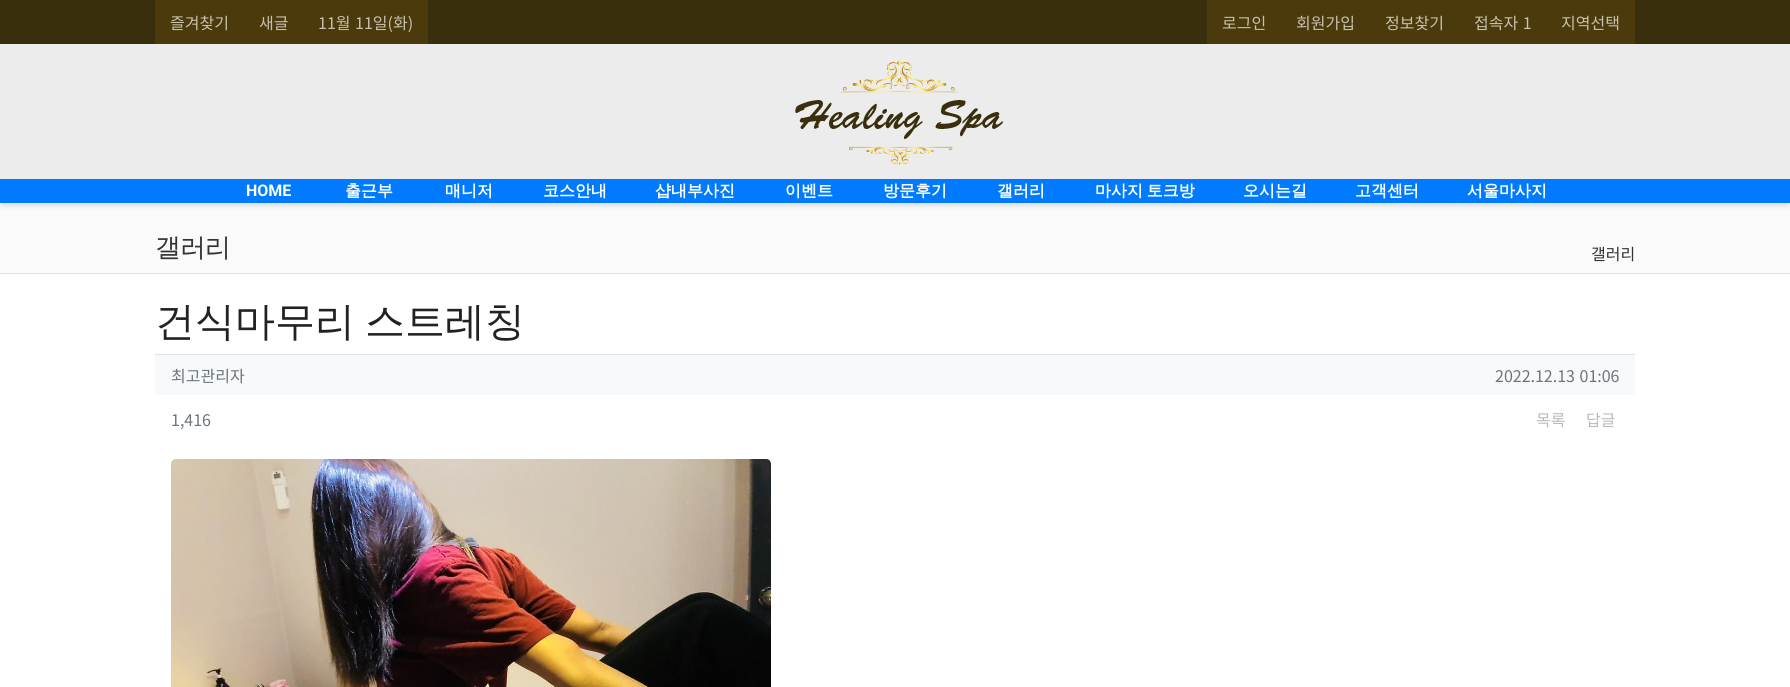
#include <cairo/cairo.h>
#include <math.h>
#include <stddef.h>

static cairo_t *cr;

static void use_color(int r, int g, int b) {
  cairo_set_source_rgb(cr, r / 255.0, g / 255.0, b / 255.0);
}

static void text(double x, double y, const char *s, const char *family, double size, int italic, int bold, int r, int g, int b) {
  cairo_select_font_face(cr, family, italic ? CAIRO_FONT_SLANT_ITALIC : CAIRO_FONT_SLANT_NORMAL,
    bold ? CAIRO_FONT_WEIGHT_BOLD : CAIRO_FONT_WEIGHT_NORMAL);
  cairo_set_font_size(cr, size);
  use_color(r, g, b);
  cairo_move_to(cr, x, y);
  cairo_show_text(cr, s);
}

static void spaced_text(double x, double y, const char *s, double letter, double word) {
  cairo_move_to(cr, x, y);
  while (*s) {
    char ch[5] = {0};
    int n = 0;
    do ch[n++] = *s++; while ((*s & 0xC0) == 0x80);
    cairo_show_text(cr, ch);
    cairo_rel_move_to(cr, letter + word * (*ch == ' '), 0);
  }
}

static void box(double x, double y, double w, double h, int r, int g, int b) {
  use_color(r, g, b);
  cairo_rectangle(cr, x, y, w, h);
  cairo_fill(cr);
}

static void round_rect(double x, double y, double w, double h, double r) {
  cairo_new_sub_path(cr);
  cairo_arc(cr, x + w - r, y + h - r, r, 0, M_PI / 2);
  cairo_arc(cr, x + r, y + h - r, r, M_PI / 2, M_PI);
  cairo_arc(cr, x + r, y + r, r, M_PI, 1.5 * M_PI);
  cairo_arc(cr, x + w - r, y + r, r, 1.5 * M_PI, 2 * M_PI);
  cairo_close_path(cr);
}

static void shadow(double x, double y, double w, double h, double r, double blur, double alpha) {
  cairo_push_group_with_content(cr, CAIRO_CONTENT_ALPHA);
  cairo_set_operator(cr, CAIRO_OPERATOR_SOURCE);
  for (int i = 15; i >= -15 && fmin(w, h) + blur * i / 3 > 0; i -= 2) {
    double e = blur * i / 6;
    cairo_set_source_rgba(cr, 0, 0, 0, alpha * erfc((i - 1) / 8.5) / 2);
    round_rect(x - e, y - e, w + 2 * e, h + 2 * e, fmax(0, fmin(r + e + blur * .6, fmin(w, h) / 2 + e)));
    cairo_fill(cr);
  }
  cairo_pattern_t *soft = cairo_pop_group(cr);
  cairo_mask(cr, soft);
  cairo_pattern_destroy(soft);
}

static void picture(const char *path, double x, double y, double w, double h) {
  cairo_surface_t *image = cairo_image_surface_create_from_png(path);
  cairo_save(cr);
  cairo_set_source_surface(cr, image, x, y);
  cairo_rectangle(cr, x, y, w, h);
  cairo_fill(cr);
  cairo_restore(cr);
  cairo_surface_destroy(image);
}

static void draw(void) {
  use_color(255, 255, 255);
  cairo_paint(cr);
  box(0, 0, 1790, 44, 58, 47, 13);
  box(155, 0, 273, 44, 74, 58, 12);
  box(1207, 0, 428, 44, 74, 58, 12);
  box(0, 44, 1790, 135, 236, 236, 236);
  picture("img_01.png", 795, 60, 208, 105);
  box(0, 203, 1790, 70, 250, 250, 250);
  use_color(50, 60, 70);
  shadow(2, 186, 1786, 20, 0, 2.5, 0.15);
  box(0, 179, 1790, 24, 0, 123, 255);
  box(0, 273, 1790, 1, 222, 226, 230);
  box(155, 355, 1480, 40, 248, 249, 250);
  box(155, 354, 1480, 1, 222, 226, 230);
  picture("img_02.png", 171, 459, 600, 228);
  text(170, 29, "즐겨찾기", "Noto Sans KR", 16, 0, 0, 199, 193, 173);
  text(259, 29, "새글", "Noto Sans KR", 16, 0, 0, 199, 193, 173);
  spaced_text(318, 29, "11월 11일(화)", 0, 1);
  text(1222, 29, "로그인", "Noto Sans KR", 16, 0, 0, 199, 193, 173);
  text(1296, 29, "회원가입", "Noto Sans KR", 16, 0, 0, 199, 193, 173);
  text(1385, 29, "정보찾기", "Noto Sans KR", 16, 0, 0, 199, 193, 173);
  spaced_text(1474, 29, "접속자 1", 0, 1);
  text(1561, 29, "지역선택", "Noto Sans KR", 16, 0, 0, 199, 193, 173);
  text(246, 196, "HOME", "Roboto", 16, 0, 1, 255, 255, 255);
  text(345, 196, "출근부", "WenQuanYi Zen Hei", 16, 0, 1, 255, 255, 255);
  text(445, 196, "매니저", "WenQuanYi Zen Hei", 16, 0, 1, 255, 255, 255);
  text(543, 196, "코스안내", "WenQuanYi Zen Hei", 16, 0, 1, 255, 255, 255);
  text(655, 196, "샵내부사진", "WenQuanYi Zen Hei", 16, 0, 1, 255, 255, 255);
  text(785, 196, "이벤트", "WenQuanYi Zen Hei", 16, 0, 1, 255, 255, 255);
  text(883, 196, "방문후기", "WenQuanYi Zen Hei", 16, 0, 1, 255, 255, 255);
  text(997, 196, "갤러리", "WenQuanYi Zen Hei", 16, 0, 1, 255, 255, 255);
  spaced_text(1095, 196, "마사지 토크방", 0, -1);
  text(1243, 196, "오시는길", "WenQuanYi Zen Hei", 16, 0, 1, 255, 255, 255);
  text(1355, 196, "고객센터", "WenQuanYi Zen Hei", 16, 0, 1, 255, 255, 255);
  text(1467, 196, "서울마사지", "WenQuanYi Zen Hei", 16, 0, 1, 255, 255, 255);
  cairo_select_font_face(cr, "WenQuanYi Zen Hei Medium", CAIRO_FONT_SLANT_NORMAL, CAIRO_FONT_WEIGHT_NORMAL);
  cairo_set_font_size(cr, 26);
  use_color(51, 51, 51);
  spaced_text(155, 256, "갤러리", -1, 0);
  text(1591, 260, "갤러리", "Noto Sans KR", 16, 0, 0, 51, 51, 51);
  cairo_select_font_face(cr, "WenQuanYi Zen Hei Medium", CAIRO_FONT_SLANT_NORMAL, CAIRO_FONT_WEIGHT_NORMAL);
  cairo_set_font_size(cr, 40);
  use_color(34, 34, 34);
  spaced_text(155, 335, "건식마무리 스트레칭", 0, -2);
  text(171, 382, "최고관리자", "Noto Sans KR", 16, 0, 0, 108, 117, 125);
  spaced_text(1495, 382, "2022.12.13 01:06", 0, 1);
  text(171, 426, "1,416", "Noto Sans KR", 16, 0, 0, 108, 117, 125);
  text(1536, 426, "목록", "Noto Sans KR", 16, 0, 0, 186, 186, 186);
  text(1586, 426, "답글", "Noto Sans KR", 16, 0, 0, 186, 186, 186);
}

int main(void) {
  cairo_surface_t *surface = cairo_image_surface_create(CAIRO_FORMAT_RGB24, 1790, 687);
  cr = cairo_create(surface);
  cairo_font_options_t *options = cairo_font_options_create();
  cairo_font_options_set_hint_metrics(options, CAIRO_HINT_METRICS_OFF);
  cairo_font_options_set_hint_style(options, CAIRO_HINT_STYLE_NONE);
  cairo_set_font_options(cr, options);
  cairo_set_miter_limit(cr, 4);
  draw();
  cairo_surface_write_to_png(surface, "out.png");
  cairo_font_options_destroy(options);
  cairo_destroy(cr);
  cairo_surface_destroy(surface);
  return 0;
}
